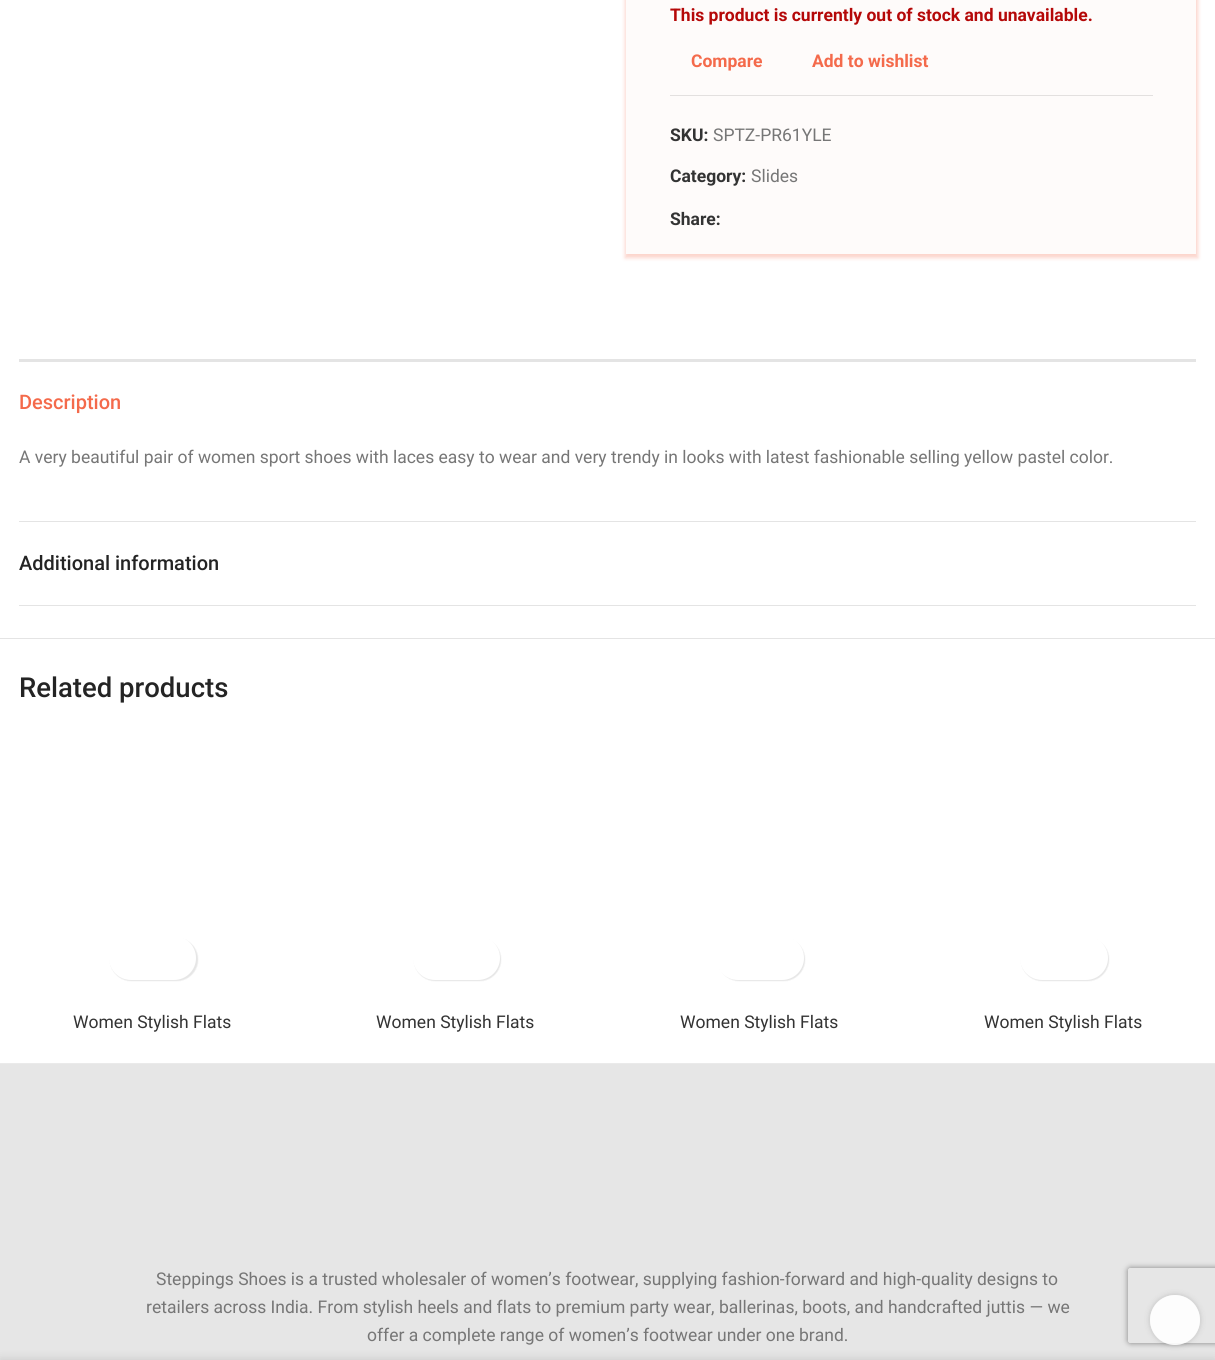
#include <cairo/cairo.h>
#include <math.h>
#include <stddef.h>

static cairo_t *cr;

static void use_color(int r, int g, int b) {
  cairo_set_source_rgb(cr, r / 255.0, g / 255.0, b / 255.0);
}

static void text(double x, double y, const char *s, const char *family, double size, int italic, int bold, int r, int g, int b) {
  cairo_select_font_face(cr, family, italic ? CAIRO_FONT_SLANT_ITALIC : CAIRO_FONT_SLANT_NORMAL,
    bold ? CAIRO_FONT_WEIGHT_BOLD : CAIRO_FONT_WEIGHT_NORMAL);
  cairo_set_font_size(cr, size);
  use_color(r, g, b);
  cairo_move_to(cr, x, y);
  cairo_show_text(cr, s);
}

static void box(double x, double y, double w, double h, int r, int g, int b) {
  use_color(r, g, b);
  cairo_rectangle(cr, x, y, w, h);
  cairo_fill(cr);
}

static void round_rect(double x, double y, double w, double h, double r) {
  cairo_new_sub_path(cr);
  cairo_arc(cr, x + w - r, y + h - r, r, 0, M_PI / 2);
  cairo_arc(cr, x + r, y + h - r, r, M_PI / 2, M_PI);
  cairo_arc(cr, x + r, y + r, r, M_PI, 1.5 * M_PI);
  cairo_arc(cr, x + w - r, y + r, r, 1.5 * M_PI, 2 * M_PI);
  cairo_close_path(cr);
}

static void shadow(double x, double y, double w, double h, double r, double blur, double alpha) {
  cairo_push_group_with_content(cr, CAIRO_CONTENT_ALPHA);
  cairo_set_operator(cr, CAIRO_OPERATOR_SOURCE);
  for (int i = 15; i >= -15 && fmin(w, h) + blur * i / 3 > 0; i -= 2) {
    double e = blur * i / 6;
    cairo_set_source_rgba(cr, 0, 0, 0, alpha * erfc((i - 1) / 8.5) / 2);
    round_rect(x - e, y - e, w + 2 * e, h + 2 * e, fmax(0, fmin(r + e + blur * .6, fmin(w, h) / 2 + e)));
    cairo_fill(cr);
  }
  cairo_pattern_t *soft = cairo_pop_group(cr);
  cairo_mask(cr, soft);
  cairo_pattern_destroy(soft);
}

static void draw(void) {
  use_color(255, 255, 255);
  cairo_paint(cr);
  cairo_save(cr);
  cairo_set_fill_rule(cr, CAIRO_FILL_RULE_EVEN_ODD);
  cairo_new_path(cr);
  cairo_move_to(cr, 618, 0);
  cairo_line_to(cr, 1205, 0);
  cairo_line_to(cr, 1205, 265);
  cairo_line_to(cr, 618, 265);
  cairo_close_path(cr);
  cairo_move_to(cr, 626, -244);
  cairo_line_to(cr, 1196, -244);
  cairo_line_to(cr, 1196, 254);
  cairo_line_to(cr, 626, 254);
  cairo_close_path(cr);
  cairo_clip(cr);
  use_color(244, 106, 75);
  shadow(625, -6, 573, 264, 0, 2, 0.29);
  cairo_restore(cr);
  cairo_set_source_rgba(cr, 0.992, 0.961, 0.953, 0.48);
  cairo_rectangle(cr, 626, 0, 570, 254);
  cairo_fill(cr);
  box(670, 95, 483, 1, 227, 224, 223);
  box(0, 638, 1215, 1, 228, 228, 228);
  box(19, 359, 1177, 3, 228, 228, 228);
  box(19, 521, 1177, 1, 228, 228, 228);
  box(19, 605, 1177, 1, 228, 228, 228);
  use_color(0, 0, 0);
  shadow(110, 938, 88, 43, 21.5, 0.5, 0.1);
  use_color(255, 255, 255);
  round_rect(109, 936, 87, 44, 22);
  cairo_fill(cr);
  use_color(0, 0, 0);
  shadow(414, 938, 87, 43, 21.5, 0.5, 0.1);
  use_color(255, 255, 255);
  round_rect(413, 936, 87, 44, 22);
  cairo_fill(cr);
  use_color(0, 0, 0);
  shadow(718, 938, 87, 43, 21.5, 0.5, 0.1);
  use_color(255, 255, 255);
  round_rect(716, 936, 88, 44, 22);
  cairo_fill(cr);
  use_color(0, 0, 0);
  shadow(1021, 938, 88, 43, 21.5, 0.5, 0.1);
  use_color(255, 255, 255);
  round_rect(1020, 936, 88, 44, 22);
  cairo_fill(cr);
  box(0, 1064, 1215, 296, 230, 230, 230);
  box(0, 1063, 1215, 1, 234, 234, 234);
  cairo_save(cr);
  cairo_set_fill_rule(cr, CAIRO_FILL_RULE_EVEN_ODD);
  cairo_new_path(cr);
  cairo_move_to(cr, 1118, 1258);
  cairo_line_to(cr, 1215, 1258);
  cairo_line_to(cr, 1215, 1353);
  cairo_line_to(cr, 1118, 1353);
  cairo_close_path(cr);
  cairo_move_to(cr, 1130.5, 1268);
  cairo_line_to(cr, 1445.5, 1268);
  cairo_curve_to(cr, 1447, 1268, 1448, 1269, 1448, 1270.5);
  cairo_line_to(cr, 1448, 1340.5);
  cairo_curve_to(cr, 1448, 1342, 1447, 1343, 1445.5, 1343);
  cairo_line_to(cr, 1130.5, 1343);
  cairo_curve_to(cr, 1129, 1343, 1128, 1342, 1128, 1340.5);
  cairo_line_to(cr, 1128, 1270.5);
  cairo_curve_to(cr, 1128, 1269, 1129, 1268, 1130.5, 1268);
  cairo_close_path(cr);
  cairo_clip(cr);
  use_color(128, 128, 128);
  shadow(1128, 1268, 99, 75, 2.5, 3, 1);
  cairo_restore(cr);
  cairo_save(cr);
  cairo_set_fill_rule(cr, CAIRO_FILL_RULE_EVEN_ODD);
  cairo_new_path(cr);
  cairo_move_to(cr, 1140, 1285);
  cairo_line_to(cr, 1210, 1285);
  cairo_line_to(cr, 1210, 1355);
  cairo_line_to(cr, 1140, 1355);
  cairo_close_path(cr);
  cairo_move_to(cr, 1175, 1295);
  cairo_curve_to(cr, 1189, 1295, 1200, 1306, 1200, 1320);
  cairo_curve_to(cr, 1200, 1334, 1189, 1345, 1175, 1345);
  cairo_curve_to(cr, 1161, 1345, 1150, 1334, 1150, 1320);
  cairo_curve_to(cr, 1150, 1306, 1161, 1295, 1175, 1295);
  cairo_close_path(cr);
  cairo_clip(cr);
  use_color(0, 0, 0);
  shadow(1150, 1295, 50, 50, 25, 3, 0.17);
  cairo_restore(cr);
  cairo_set_source_rgba(cr, 1, 1, 1, 0.9);
  cairo_arc(cr, 1175, 1320, 25, 0, 2 * M_PI);
  cairo_fill(cr);
  use_color(0, 0, 0);
  shadow(0, 1360, 1215, 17, 0, 5.5, 0.14);
  text(670, 21, "This product is currently out of stock and unavailable.", "Roboto", 17.5, 0, 1, 181, 8, 8);
  text(691, 67, "Compare", "Roboto", 17.5, 0, 1, 244, 106, 75);
  text(812, 67, "Add to wishlist", "Roboto", 17.5, 0, 1, 244, 106, 75);
  text(670, 141, "SKU:", "Roboto", 17.5, 0, 1, 51, 51, 51);
  text(713, 141, "SPTZ-PR61YLE", "Roboto", 17.5, 0, 0, 118, 118, 118);
  text(670, 182, "Category:", "Roboto", 17.5, 0, 1, 51, 51, 51);
  text(751, 182, "Slides", "Roboto", 17.5, 0, 0, 118, 118, 118);
  text(670, 225, "Share:", "Roboto", 17.5, 0, 1, 51, 51, 51);
  text(19, 409, "Description", "Roboto Medium", 20, 0, 0, 244, 106, 75);
  text(19, 463, "A very beautiful pair of women sport shoes with laces easy to wear and very trendy in looks with latest fashionable selling yellow pastel color.", "Roboto", 17.5, 0, 0, 118, 118, 118);
  text(19, 570, "Additional information", "Roboto Medium", 20, 0, 0, 36, 36, 36);
  text(19, 697, "Related products", "Roboto Medium", 27.5, 0, 0, 36, 36, 36);
  text(73, 1028, "Women Stylish Flats", "Roboto", 17.5, 0, 0, 51, 51, 51);
  text(376, 1028, "Women Stylish Flats", "Roboto", 17.5, 0, 0, 51, 51, 51);
  text(680, 1028, "Women Stylish Flats", "Roboto", 17.5, 0, 0, 51, 51, 51);
  text(984, 1028, "Women Stylish Flats", "Roboto", 17.5, 0, 0, 51, 51, 51);
  text(156, 1285, "Steppings Shoes is a trusted wholesaler of women’s footwear, supplying fashion-forward and high-quality designs to", "Roboto", 17.5, 0, 0, 118, 118, 118);
  text(146, 1313, "retailers across India. From stylish heels and flats to premium party wear, ballerinas, boots, and handcrafted juttis — we", "Roboto", 17.5, 0, 0, 118, 118, 118);
  text(367, 1341, "offer a complete range of women’s footwear under one brand.", "Roboto", 17.5, 0, 0, 118, 118, 118);
}

int main(void) {
  cairo_surface_t *surface = cairo_image_surface_create(CAIRO_FORMAT_RGB24, 1215, 1360);
  cr = cairo_create(surface);
  cairo_font_options_t *options = cairo_font_options_create();
  cairo_font_options_set_hint_metrics(options, CAIRO_HINT_METRICS_OFF);
  cairo_font_options_set_hint_style(options, CAIRO_HINT_STYLE_NONE);
  cairo_set_font_options(cr, options);
  cairo_set_miter_limit(cr, 4);
  draw();
  cairo_surface_write_to_png(surface, "out.png");
  cairo_font_options_destroy(options);
  cairo_destroy(cr);
  cairo_surface_destroy(surface);
  return 0;
}
